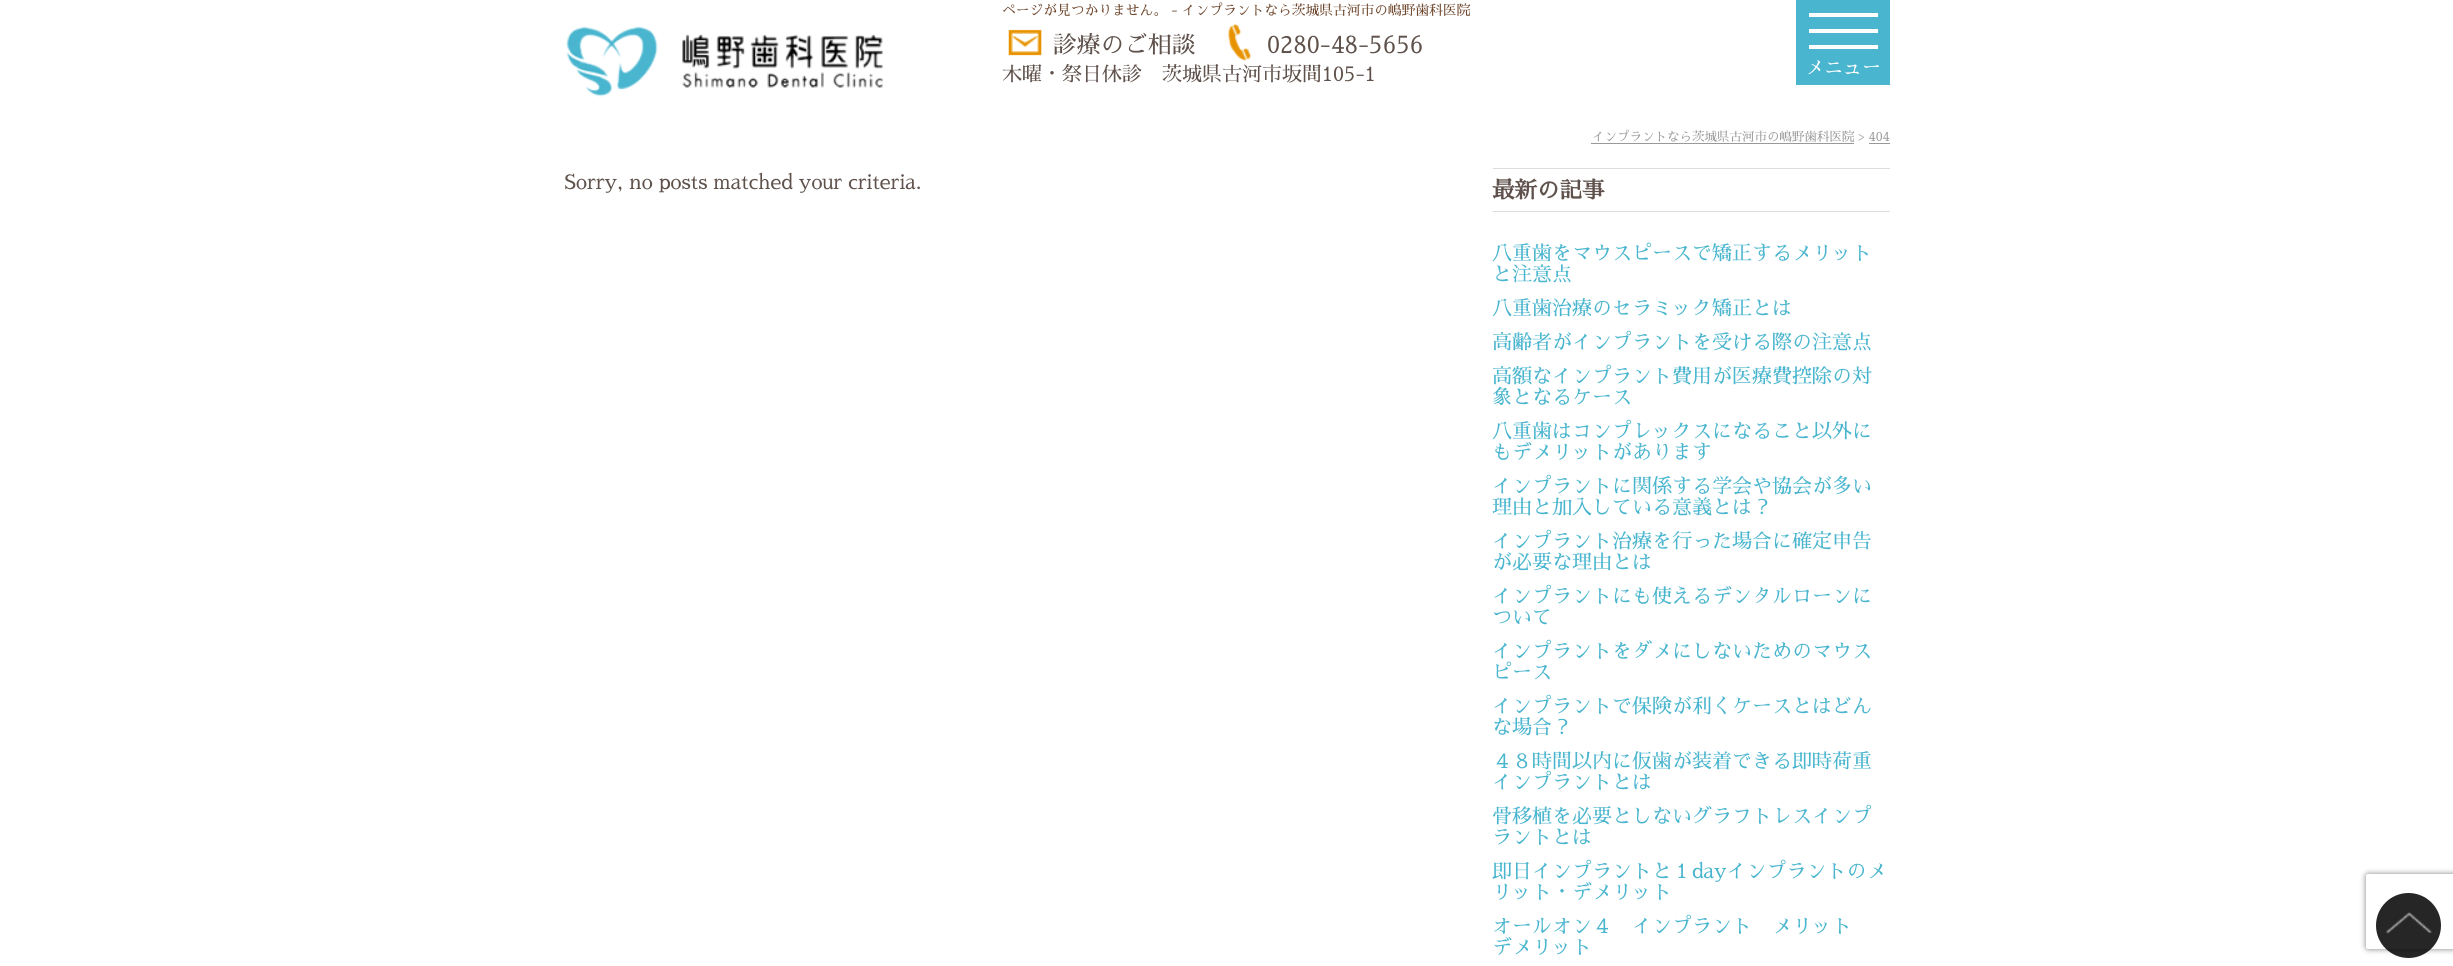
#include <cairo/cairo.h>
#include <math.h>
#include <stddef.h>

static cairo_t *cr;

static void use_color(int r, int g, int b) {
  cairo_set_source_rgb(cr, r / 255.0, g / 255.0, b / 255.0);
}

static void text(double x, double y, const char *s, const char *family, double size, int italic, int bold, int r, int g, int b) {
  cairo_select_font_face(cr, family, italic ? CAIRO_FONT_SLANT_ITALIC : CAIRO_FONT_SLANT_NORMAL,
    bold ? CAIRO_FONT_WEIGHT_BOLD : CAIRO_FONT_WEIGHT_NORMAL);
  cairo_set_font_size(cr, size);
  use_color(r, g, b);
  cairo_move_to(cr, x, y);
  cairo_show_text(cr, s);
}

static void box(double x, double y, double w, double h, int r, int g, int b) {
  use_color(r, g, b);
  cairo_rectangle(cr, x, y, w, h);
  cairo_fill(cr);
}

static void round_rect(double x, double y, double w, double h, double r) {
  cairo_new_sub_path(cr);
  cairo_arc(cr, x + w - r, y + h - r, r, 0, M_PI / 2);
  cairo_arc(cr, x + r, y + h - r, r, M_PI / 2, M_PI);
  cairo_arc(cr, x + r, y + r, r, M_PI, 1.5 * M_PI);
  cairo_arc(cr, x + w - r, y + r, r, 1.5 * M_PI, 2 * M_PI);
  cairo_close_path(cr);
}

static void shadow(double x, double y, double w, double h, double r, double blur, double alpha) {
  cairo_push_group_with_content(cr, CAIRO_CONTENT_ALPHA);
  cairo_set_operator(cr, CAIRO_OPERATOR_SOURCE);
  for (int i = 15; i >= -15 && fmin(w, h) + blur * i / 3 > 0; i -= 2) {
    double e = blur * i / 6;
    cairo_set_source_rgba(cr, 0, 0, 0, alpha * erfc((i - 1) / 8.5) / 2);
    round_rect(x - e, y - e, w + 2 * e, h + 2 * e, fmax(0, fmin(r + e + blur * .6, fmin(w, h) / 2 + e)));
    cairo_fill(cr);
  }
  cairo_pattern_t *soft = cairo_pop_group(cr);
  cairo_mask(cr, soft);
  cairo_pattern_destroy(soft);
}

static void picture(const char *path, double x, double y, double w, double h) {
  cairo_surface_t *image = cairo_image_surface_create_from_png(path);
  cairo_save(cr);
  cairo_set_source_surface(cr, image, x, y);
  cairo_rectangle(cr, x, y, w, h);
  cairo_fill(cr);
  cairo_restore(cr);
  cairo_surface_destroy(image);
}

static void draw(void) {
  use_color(255, 255, 255);
  cairo_paint(cr);
  picture("img_01.png", 566, 26, 317, 71);
  picture("img_02.png", 1008, 29, 34, 27);
  picture("img_03.png", 1227, 23, 25, 39);
  box(1796, 0, 94, 85, 73, 181, 206);
  box(1809, 13, 69, 4, 255, 255, 255);
  box(1809, 29, 69, 4, 255, 255, 255);
  box(1809, 45, 69, 4, 255, 255, 255);
  box(1591, 143, 263, 1, 153, 153, 153);
  box(1869, 143, 21, 1, 153, 153, 153);
  box(1493, 168, 397, 1, 221, 221, 221);
  box(1493, 211, 397, 1, 221, 221, 221);
  cairo_save(cr);
  cairo_set_fill_rule(cr, CAIRO_FILL_RULE_EVEN_ODD);
  cairo_new_path(cr);
  cairo_move_to(cr, 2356, 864);
  cairo_line_to(cr, 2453, 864);
  cairo_line_to(cr, 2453, 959);
  cairo_line_to(cr, 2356, 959);
  cairo_close_path(cr);
  cairo_move_to(cr, 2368.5, 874);
  cairo_line_to(cr, 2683.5, 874);
  cairo_curve_to(cr, 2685, 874, 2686, 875, 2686, 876.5);
  cairo_line_to(cr, 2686, 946.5);
  cairo_curve_to(cr, 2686, 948, 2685, 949, 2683.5, 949);
  cairo_line_to(cr, 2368.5, 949);
  cairo_curve_to(cr, 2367, 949, 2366, 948, 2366, 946.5);
  cairo_line_to(cr, 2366, 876.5);
  cairo_curve_to(cr, 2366, 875, 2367, 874, 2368.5, 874);
  cairo_close_path(cr);
  cairo_clip(cr);
  use_color(128, 128, 128);
  shadow(2366, 874, 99, 75, 2.5, 3, 1);
  cairo_restore(cr);
  cairo_set_source_rgba(cr, 0, 0, 0, 0.85);
  cairo_arc(cr, 2408.5, 925.5, 32.5, 0, 2 * M_PI);
  cairo_fill(cr);
  picture("img_04.png", 2386, 912, 46, 22);
  text(1002, 15, "ページが見つかりません。 - インプラントなら茨城県古河市の嶋野歯科医院", "Sawarabi Mincho", 13.75, 0, 0, 110, 71, 45);
  text(1053, 53, "診療のご相談", "Sawarabi Mincho", 23.75, 0, 0, 95, 82, 76);
  text(1267, 53, "0280-48-5656", "Sawarabi Mincho", 23.75, 0, 0, 95, 82, 76);
  text(1002, 81, "木曜・祭日休診　茨城県古河市坂間105-1", "Sawarabi Mincho", 20, 0, 0, 95, 82, 76);
  text(1805, 74, "メニュー", "Sawarabi Mincho", 19, 0, 0, 255, 255, 255);
  text(1592, 141, "インプラントなら茨城県古河市の嶋野歯科医院 > 404", "Sawarabi Mincho", 12.5, 0, 0, 153, 153, 153);
  text(564, 189, "Sorry, no posts matched your criteria.", "Sawarabi Mincho", 20, 0, 0, 95, 82, 76);
  text(1492, 198, "最新の記事", "Sawarabi Mincho", 22.5, 0, 1, 95, 82, 76);
  text(1492, 260, "八重歯をマウスピースで矯正するメリット", "Sawarabi Mincho", 20, 0, 0, 73, 181, 206);
  text(1492, 281, "と注意点", "Sawarabi Mincho", 20, 0, 0, 73, 181, 206);
  text(1492, 315, "八重歯治療のセラミック矯正とは", "Sawarabi Mincho", 20, 0, 0, 73, 181, 206);
  text(1492, 349, "高齢者がインプラントを受ける際の注意点", "Sawarabi Mincho", 20, 0, 0, 73, 181, 206);
  text(1492, 383, "高額なインプラント費用が医療費控除の対", "Sawarabi Mincho", 20, 0, 0, 73, 181, 206);
  text(1492, 404, "象となるケース", "Sawarabi Mincho", 20, 0, 0, 73, 181, 206);
  text(1492, 438, "八重歯はコンプレックスになること以外に", "Sawarabi Mincho", 20, 0, 0, 73, 181, 206);
  text(1492, 459, "もデメリットがあります", "Sawarabi Mincho", 20, 0, 0, 73, 181, 206);
  text(1492, 493, "インプラントに関係する学会や協会が多い", "Sawarabi Mincho", 20, 0, 0, 73, 181, 206);
  text(1492, 514, "理由と加入している意義とは？", "Sawarabi Mincho", 20, 0, 0, 73, 181, 206);
  text(1492, 548, "インプラント治療を行った場合に確定申告", "Sawarabi Mincho", 20, 0, 0, 73, 181, 206);
  text(1492, 569, "が必要な理由とは", "Sawarabi Mincho", 20, 0, 0, 73, 181, 206);
  text(1492, 603, "インプラントにも使えるデンタルローンに", "Sawarabi Mincho", 20, 0, 0, 73, 181, 206);
  text(1492, 624, "ついて", "Sawarabi Mincho", 20, 0, 0, 73, 181, 206);
  text(1492, 658, "インプラントをダメにしないためのマウス", "Sawarabi Mincho", 20, 0, 0, 73, 181, 206);
  text(1492, 679, "ピース", "Sawarabi Mincho", 20, 0, 0, 73, 181, 206);
  text(1492, 713, "インプラントで保険が利くケースとはどん", "Sawarabi Mincho", 20, 0, 0, 73, 181, 206);
  text(1492, 734, "な場合？", "Sawarabi Mincho", 20, 0, 0, 73, 181, 206);
  text(1492, 768, "４８時間以内に仮歯が装着できる即時荷重", "Sawarabi Mincho", 20, 0, 0, 73, 181, 206);
  text(1492, 789, "インプラントとは", "Sawarabi Mincho", 20, 0, 0, 73, 181, 206);
  text(1492, 823, "骨移植を必要としないグラフトレスインプ", "Sawarabi Mincho", 20, 0, 0, 73, 181, 206);
  text(1492, 844, "ラントとは", "Sawarabi Mincho", 20, 0, 0, 73, 181, 206);
  text(1492, 878, "即日インプラントと１dayインプラントのメ", "Sawarabi Mincho", 20, 0, 0, 73, 181, 206);
  text(1492, 899, "リット・デメリット", "Sawarabi Mincho", 20, 0, 0, 73, 181, 206);
  text(1492, 933, "オールオン４　インプラント　メリット", "Sawarabi Mincho", 20, 0, 0, 73, 181, 206);
  text(1492, 954, "デメリット", "Sawarabi Mincho", 20, 0, 0, 73, 181, 206);
}

int main(void) {
  cairo_surface_t *surface = cairo_image_surface_create(CAIRO_FORMAT_RGB24, 2453, 966);
  cr = cairo_create(surface);
  cairo_font_options_t *options = cairo_font_options_create();
  cairo_font_options_set_hint_metrics(options, CAIRO_HINT_METRICS_OFF);
  cairo_font_options_set_hint_style(options, CAIRO_HINT_STYLE_NONE);
  cairo_set_font_options(cr, options);
  cairo_set_miter_limit(cr, 4);
  draw();
  cairo_surface_write_to_png(surface, "out.png");
  cairo_font_options_destroy(options);
  cairo_destroy(cr);
  cairo_surface_destroy(surface);
  return 0;
}
